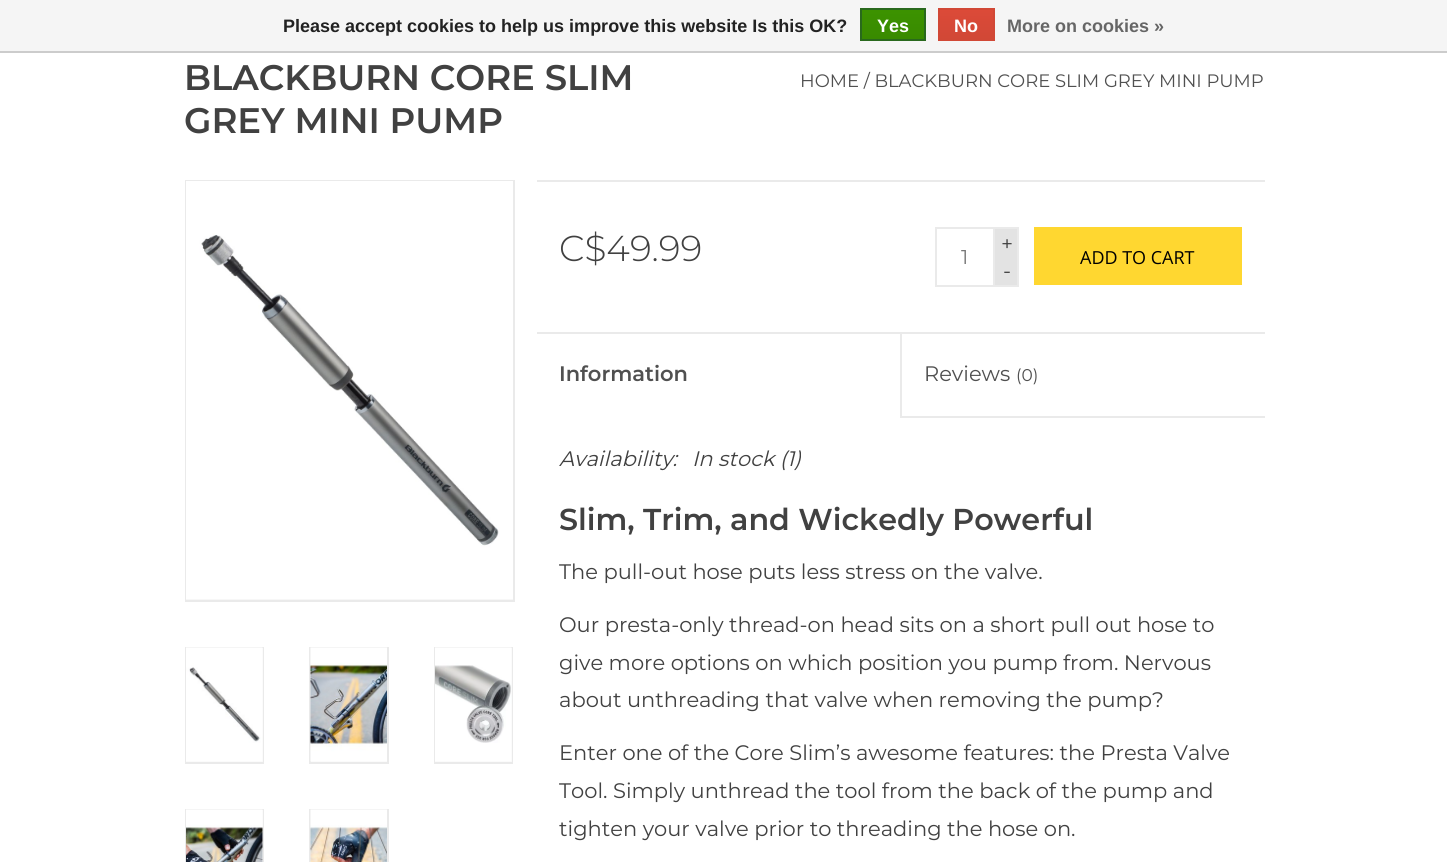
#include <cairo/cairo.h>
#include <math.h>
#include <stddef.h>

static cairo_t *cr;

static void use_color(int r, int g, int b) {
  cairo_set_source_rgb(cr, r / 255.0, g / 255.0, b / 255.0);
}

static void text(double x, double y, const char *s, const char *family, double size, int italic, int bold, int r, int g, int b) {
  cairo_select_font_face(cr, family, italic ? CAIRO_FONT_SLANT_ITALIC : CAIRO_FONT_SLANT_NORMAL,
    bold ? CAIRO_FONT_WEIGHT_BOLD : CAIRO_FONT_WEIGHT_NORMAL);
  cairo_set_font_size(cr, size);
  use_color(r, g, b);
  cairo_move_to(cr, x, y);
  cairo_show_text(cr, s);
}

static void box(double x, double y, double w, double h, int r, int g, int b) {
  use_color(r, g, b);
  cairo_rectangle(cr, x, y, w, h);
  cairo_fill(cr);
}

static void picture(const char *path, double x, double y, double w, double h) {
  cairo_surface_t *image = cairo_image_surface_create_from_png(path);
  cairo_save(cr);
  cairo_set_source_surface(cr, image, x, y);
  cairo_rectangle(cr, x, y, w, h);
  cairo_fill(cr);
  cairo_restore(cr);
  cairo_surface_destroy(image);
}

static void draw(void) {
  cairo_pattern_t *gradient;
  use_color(255, 255, 255);
  cairo_paint(cr);
  box(0, 0, 1447, 51, 245, 245, 245);
  box(0, 51, 1447, 2, 204, 204, 204);
  gradient = cairo_pattern_create_linear(893, 9, 893, 39);
  cairo_pattern_add_color_stop_rgba(gradient, 0, 0.235, 0.576, 0, 1);
  cairo_pattern_add_color_stop_rgba(gradient, 1, 0.224, 0.541, 0, 1);
  cairo_set_source(cr, gradient);
  cairo_pattern_destroy(gradient);
  cairo_rectangle(cr, 862, 10, 62, 29);
  cairo_fill(cr);
  cairo_rectangle(cr, 861, 9, 64, 31);
  use_color(41, 105, 29);
  cairo_stroke(cr);
  gradient = cairo_pattern_create_linear(966, 9, 966, 39);
  cairo_pattern_add_color_stop_rgba(gradient, 0, 0.863, 0.29, 0.22, 1);
  cairo_pattern_add_color_stop_rgba(gradient, 1, 0.82, 0.282, 0.212, 1);
  cairo_set_source(cr, gradient);
  cairo_pattern_destroy(gradient);
  cairo_rectangle(cr, 940, 10, 53, 29);
  cairo_fill(cr);
  cairo_rectangle(cr, 939, 9, 55, 31);
  use_color(209, 72, 54);
  cairo_stroke(cr);
  cairo_rectangle(cr, 186, 181, 328, 420);
  use_color(234, 234, 234);
  cairo_stroke(cr);
  box(186, 599, 327, 1, 247, 247, 247);
  picture("img_01.png", 186, 181, 327, 418);
  cairo_rectangle(cr, 186, 648, 77, 115);
  use_color(234, 234, 234);
  cairo_stroke(cr);
  box(186, 648, 77, 114, 247, 247, 247);
  picture("img_02.png", 186, 647, 77, 115);
  cairo_rectangle(cr, 310, 648, 78, 115);
  use_color(234, 234, 234);
  cairo_stroke(cr);
  box(311, 761, 76, 1, 247, 247, 247);
  picture("img_03.png", 310, 647, 77, 115);
  cairo_rectangle(cr, 435, 648, 77, 115);
  use_color(234, 234, 234);
  cairo_stroke(cr);
  box(435, 648, 77, 114, 247, 247, 247);
  picture("img_04.png", 435, 647, 77, 115);
  cairo_rectangle(cr, 186, 810, 77, 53);
  use_color(234, 234, 234);
  cairo_stroke(cr);
  box(262, 810, 1, 52, 247, 247, 247);
  picture("img_05.png", 186, 809, 77, 53);
  cairo_rectangle(cr, 310, 810, 78, 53);
  use_color(234, 234, 234);
  cairo_stroke(cr);
  picture("img_06.png", 310, 809, 77, 53);
  box(537, 180, 728, 2, 234, 234, 234);
  cairo_rectangle(cr, 936, 228, 58, 58);
  cairo_stroke(cr);
  box(995, 229, 22, 56, 227, 227, 227);
  box(995, 227, 24, 2, 234, 234, 234);
  box(1017, 227, 2, 60, 234, 234, 234);
  box(995, 285, 24, 2, 234, 234, 234);
  box(1034, 227, 208, 58, 255, 215, 48);
  box(537, 332, 728, 2, 234, 234, 234);
  box(900, 416, 365, 2, 234, 234, 234);
  box(900, 333, 2, 84, 234, 234, 234);
  text(283, 32, "Please accept cookies to help us improve this website Is this OK?", "Liberation Sans", 18, 0, 1, 34, 34, 34);
  text(877, 32, "Yes", "Liberation Sans", 18, 0, 1, 255, 255, 255);
  text(954, 32, "No", "Liberation Sans", 18, 0, 1, 255, 255, 255);
  text(1007, 32, "More on cookies »", "Liberation Sans", 18, 0, 1, 102, 102, 102);
  text(184, 90, "BLACKBURN CORE SLIM", "Montserrat SemiBold", 35.5, 0, 0, 65, 65, 65);
  text(184, 133, "GREY MINI PUMP", "Montserrat SemiBold", 35.5, 0, 0, 65, 65, 65);
  text(800, 87, "HOME / BLACKBURN CORE SLIM GREY MINI PUMP", "Montserrat", 18, 0, 0, 80, 80, 80);
  text(559, 261, "C$49.99", "Montserrat Light", 36, 0, 0, 65, 65, 65);
  text(961, 264, "1", "Montserrat", 20, 0, 0, 119, 119, 119);
  text(1001, 251, "+", "Montserrat", 21, 0, 0, 65, 65, 65);
  text(1003, 278, "-", "Montserrat", 21, 0, 0, 65, 65, 65);
  text(1080, 264, "ADD TO CART", "Open Sans", 18, 0, 0, 0, 0, 0);
  text(559, 381, "Information", "Montserrat SemiBold", 21, 0, 0, 80, 80, 80);
  text(924, 381, "Reviews", "Montserrat", 21, 0, 0, 80, 80, 80);
  text(1016, 381, "(0)", "Montserrat", 17, 0, 0, 80, 80, 80);
  text(559, 466, "Availability:", "Montserrat", 21, 1, 0, 65, 65, 65);
  text(692, 466, "In stock (1)", "Montserrat", 21, 1, 0, 65, 65, 65);
  text(559, 530, "Slim, Trim, and Wickedly Powerful", "Montserrat SemiBold", 30.2, 0, 0, 65, 65, 65);
  text(559, 579, "The pull-out hose puts less stress on the valve.", "Montserrat", 21, 0, 0, 65, 65, 65);
  text(559, 632, "Our presta-only thread-on head sits on a short pull out hose to", "Montserrat", 21, 0, 0, 65, 65, 65);
  text(559, 670, "give more options on which position you pump from. Nervous", "Montserrat", 21, 0, 0, 65, 65, 65);
  text(559, 707, "about unthreading that valve when removing the pump?", "Montserrat", 21, 0, 0, 65, 65, 65);
  text(559, 760, "Enter one of the Core Slim’s awesome features: the Presta Valve", "Montserrat", 21, 0, 0, 65, 65, 65);
  text(559, 798, "Tool. Simply unthread the tool from the back of the pump and", "Montserrat", 21, 0, 0, 65, 65, 65);
  text(559, 836, "tighten your valve prior to threading the hose on.", "Montserrat", 21, 0, 0, 65, 65, 65);
}

int main(void) {
  cairo_surface_t *surface = cairo_image_surface_create(CAIRO_FORMAT_RGB24, 1447, 862);
  cr = cairo_create(surface);
  cairo_font_options_t *options = cairo_font_options_create();
  cairo_font_options_set_hint_metrics(options, CAIRO_HINT_METRICS_OFF);
  cairo_font_options_set_hint_style(options, CAIRO_HINT_STYLE_NONE);
  cairo_set_font_options(cr, options);
  cairo_set_miter_limit(cr, 4);
  draw();
  cairo_surface_write_to_png(surface, "out.png");
  cairo_font_options_destroy(options);
  cairo_destroy(cr);
  cairo_surface_destroy(surface);
  return 0;
}
